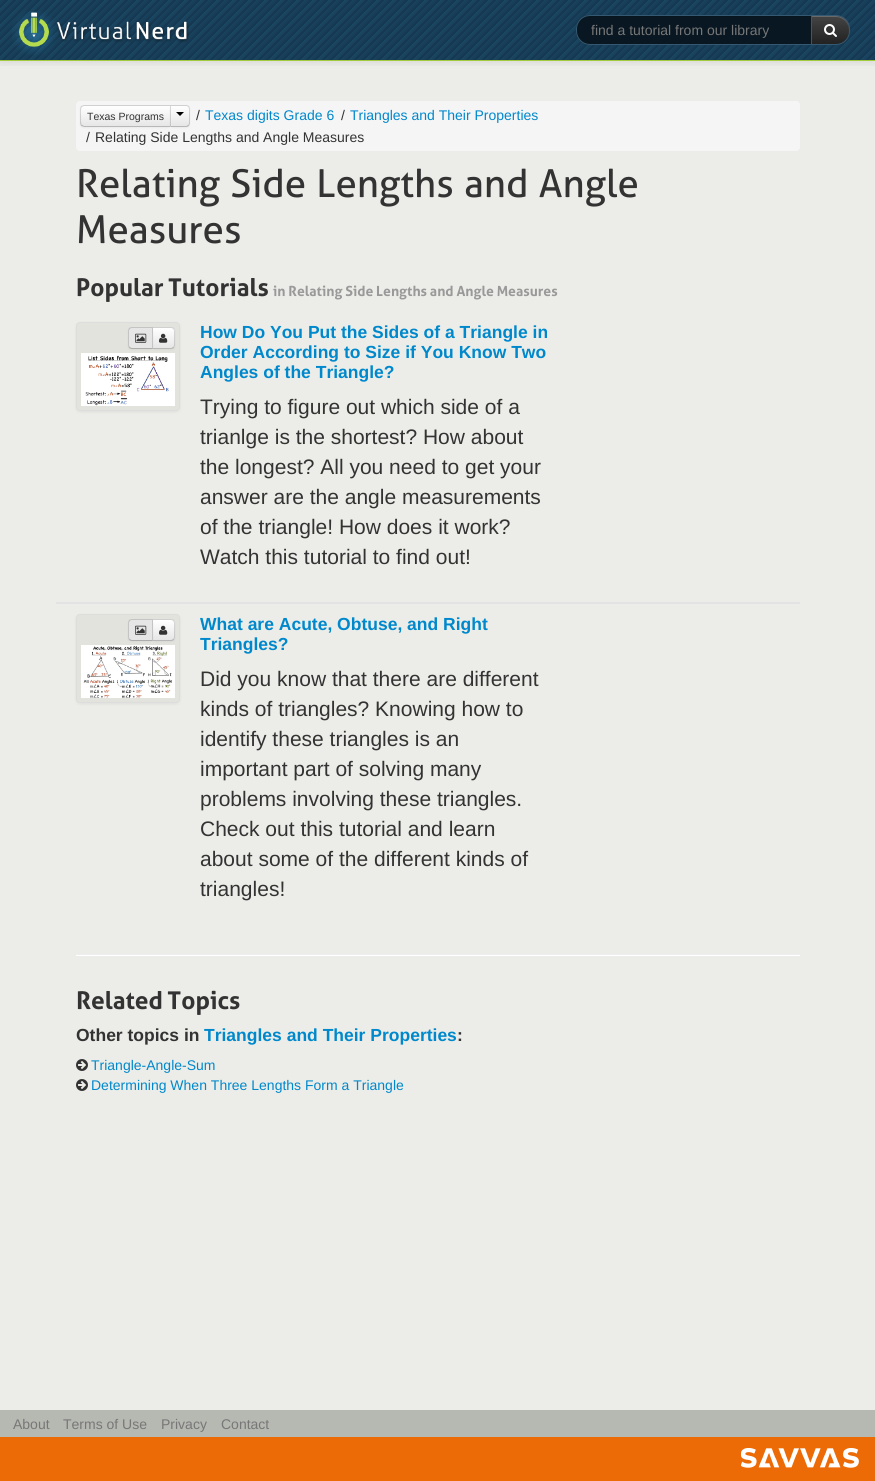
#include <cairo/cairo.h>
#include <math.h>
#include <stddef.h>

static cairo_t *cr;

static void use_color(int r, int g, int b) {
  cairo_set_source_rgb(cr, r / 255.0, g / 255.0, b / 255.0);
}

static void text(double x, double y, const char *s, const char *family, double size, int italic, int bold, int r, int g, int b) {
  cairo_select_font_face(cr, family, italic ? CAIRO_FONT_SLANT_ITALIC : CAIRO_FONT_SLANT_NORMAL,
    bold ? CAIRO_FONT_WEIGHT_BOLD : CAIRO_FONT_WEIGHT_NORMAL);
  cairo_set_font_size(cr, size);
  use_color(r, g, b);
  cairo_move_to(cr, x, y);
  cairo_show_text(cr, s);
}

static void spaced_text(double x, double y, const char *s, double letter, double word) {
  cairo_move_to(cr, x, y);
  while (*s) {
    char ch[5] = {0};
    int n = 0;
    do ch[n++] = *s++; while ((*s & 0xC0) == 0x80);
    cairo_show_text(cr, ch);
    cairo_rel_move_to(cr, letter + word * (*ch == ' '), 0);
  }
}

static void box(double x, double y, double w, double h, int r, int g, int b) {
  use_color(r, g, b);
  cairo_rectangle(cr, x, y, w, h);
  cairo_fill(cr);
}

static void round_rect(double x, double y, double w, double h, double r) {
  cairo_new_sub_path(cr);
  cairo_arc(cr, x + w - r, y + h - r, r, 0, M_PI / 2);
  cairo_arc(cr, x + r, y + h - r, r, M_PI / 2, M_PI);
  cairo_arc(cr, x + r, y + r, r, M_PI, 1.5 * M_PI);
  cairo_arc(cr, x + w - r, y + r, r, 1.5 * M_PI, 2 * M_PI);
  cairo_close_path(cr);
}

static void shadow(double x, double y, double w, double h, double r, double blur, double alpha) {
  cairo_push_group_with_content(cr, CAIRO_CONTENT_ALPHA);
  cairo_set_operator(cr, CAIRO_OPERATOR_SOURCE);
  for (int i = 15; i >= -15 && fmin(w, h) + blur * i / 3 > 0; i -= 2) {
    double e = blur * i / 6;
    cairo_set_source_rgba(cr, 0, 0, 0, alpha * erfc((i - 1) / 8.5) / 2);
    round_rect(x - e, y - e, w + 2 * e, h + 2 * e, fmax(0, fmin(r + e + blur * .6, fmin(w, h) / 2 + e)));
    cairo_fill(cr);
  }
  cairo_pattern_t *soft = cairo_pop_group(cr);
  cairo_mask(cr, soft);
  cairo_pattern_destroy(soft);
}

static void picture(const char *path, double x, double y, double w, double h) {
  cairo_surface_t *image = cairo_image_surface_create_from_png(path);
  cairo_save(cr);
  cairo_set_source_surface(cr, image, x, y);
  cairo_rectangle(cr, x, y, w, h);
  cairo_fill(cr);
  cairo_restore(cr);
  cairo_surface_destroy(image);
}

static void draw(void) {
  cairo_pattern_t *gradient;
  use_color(236, 237, 232);
  cairo_paint(cr);
  picture("img_01.png", 0, 0, 875, 60);
  cairo_save(cr);
  cairo_rectangle(cr, 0, 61, 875, 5);
  cairo_clip(cr);
  use_color(0, 0, 0);
  shadow(0, 1, 875, 61, 0, 5, 0.1);
  cairo_restore(cr);
  box(0, 60, 875, 1, 160, 204, 58);
  picture("img_02.png", 12, 11, 177, 44);
  cairo_save(cr);
  cairo_new_path(cr);
  cairo_move_to(cr, 811, 15);
  cairo_line_to(cr, 836, 15);
  cairo_curve_to(cr, 843.5, 15, 850, 21.5, 850, 29);
  cairo_line_to(cr, 850, 31);
  cairo_curve_to(cr, 850, 38.5, 843.5, 45, 836, 45);
  cairo_line_to(cr, 811, 45);
  cairo_close_path(cr);
  cairo_clip(cr);
  gradient = cairo_pattern_create_linear(831, 16, 831, 44);
  cairo_pattern_add_color_stop_rgba(gradient, 0, 0.267, 0.267, 0.267, 1);
  cairo_pattern_add_color_stop_rgba(gradient, 1, 0.133, 0.133, 0.133, 1);
  cairo_set_source(cr, gradient);
  cairo_pattern_destroy(gradient);
  cairo_rectangle(cr, 812, 16, 38, 28);
  cairo_fill(cr);
  cairo_restore(cr);
  cairo_set_source_rgba(cr, 1, 1, 1, 0.2);
  cairo_new_path(cr);
  cairo_move_to(cr, 812, 17);
  cairo_line_to(cr, 836, 17);
  cairo_curve_to(cr, 843, 17, 849, 23, 849, 30);
  cairo_line_to(cr, 849, 29);
  cairo_curve_to(cr, 849, 22, 843, 16, 836, 16);
  cairo_line_to(cr, 812, 16);
  cairo_close_path(cr);
  cairo_fill(cr);
  cairo_new_path(cr);
  cairo_move_to(cr, 811.5, 15.5);
  cairo_line_to(cr, 836, 15.5);
  cairo_curve_to(cr, 843.5, 15.5, 849.5, 21.5, 849.5, 29);
  cairo_line_to(cr, 849.5, 31);
  cairo_curve_to(cr, 849.5, 38.5, 843.5, 44.5, 836, 44.5);
  cairo_line_to(cr, 811.5, 44.5);
  cairo_close_path(cr);
  use_color(53, 89, 114);
  cairo_set_line_width(cr, 1);
  cairo_stroke(cr);
  use_color(8, 23, 33);
  cairo_new_path(cr);
  cairo_move_to(cr, 590, 15);
  cairo_line_to(cr, 812, 15);
  cairo_line_to(cr, 812, 45);
  cairo_line_to(cr, 590, 45);
  cairo_curve_to(cr, 582.5, 45, 576, 38.5, 576, 31);
  cairo_line_to(cr, 576, 29);
  cairo_curve_to(cr, 576, 21.5, 582.5, 15, 590, 15);
  cairo_close_path(cr);
  cairo_fill(cr);
  cairo_set_source_rgba(cr, 0, 0, 0, 0.07);
  cairo_new_path(cr);
  cairo_move_to(cr, 590, 17);
  cairo_line_to(cr, 811, 17);
  cairo_line_to(cr, 811, 16);
  cairo_line_to(cr, 627, 16);
  cairo_curve_to(cr, 618, 16, 570, 7, 577, 34);
  cairo_curve_to(cr, 576, 26, 581, 17, 590, 17);
  cairo_close_path(cr);
  cairo_fill(cr);
  cairo_new_path(cr);
  cairo_move_to(cr, 590, 15.5);
  cairo_line_to(cr, 811.5, 15.5);
  cairo_line_to(cr, 811.5, 44.5);
  cairo_line_to(cr, 590, 44.5);
  cairo_curve_to(cr, 582.5, 44.5, 576.5, 38.5, 576.5, 31);
  cairo_line_to(cr, 576.5, 29);
  cairo_curve_to(cr, 576.5, 21.5, 582.5, 15.5, 590, 15.5);
  cairo_close_path(cr);
  use_color(53, 89, 114);
  cairo_stroke(cr);
  picture("img_03.png", 824, 24, 13, 13);
  use_color(245, 245, 245);
  round_rect(76, 101, 724, 50, 4);
  cairo_fill(cr);
  use_color(0, 0, 0);
  shadow(80, 106, 91, 22, 4, 1, 0.05);
  use_color(245, 245, 245);
  cairo_new_path(cr);
  cairo_move_to(cr, 84, 105);
  cairo_line_to(cr, 171, 105);
  cairo_line_to(cr, 171, 127);
  cairo_line_to(cr, 84, 127);
  cairo_curve_to(cr, 82, 127, 80, 125, 80, 123);
  cairo_line_to(cr, 80, 109);
  cairo_curve_to(cr, 80, 107, 82, 105, 84, 105);
  cairo_close_path(cr);
  cairo_fill(cr);
  cairo_save(cr);
  cairo_new_path(cr);
  cairo_move_to(cr, 84, 105);
  cairo_line_to(cr, 171, 105);
  cairo_line_to(cr, 171, 127);
  cairo_line_to(cr, 84, 127);
  cairo_curve_to(cr, 82, 127, 80, 125, 80, 123);
  cairo_line_to(cr, 80, 109);
  cairo_curve_to(cr, 80, 107, 82, 105, 84, 105);
  cairo_close_path(cr);
  cairo_clip(cr);
  gradient = cairo_pattern_create_linear(126, 106, 126, 126);
  cairo_pattern_add_color_stop_rgba(gradient, 0, 1, 1, 1, 1);
  cairo_pattern_add_color_stop_rgba(gradient, 1, 0.902, 0.902, 0.902, 1);
  cairo_set_source(cr, gradient);
  cairo_pattern_destroy(gradient);
  cairo_rectangle(cr, 80, 106, 90, 20);
  cairo_fill(cr);
  cairo_restore(cr);
  cairo_set_source_rgba(cr, 0, 0, 0, 0.15);
  cairo_new_path(cr);
  cairo_move_to(cr, 84, 105);
  cairo_line_to(cr, 81, 106);
  cairo_line_to(cr, 82, 107);
  cairo_line_to(cr, 84, 106);
  cairo_line_to(cr, 170, 106);
  cairo_line_to(cr, 171, 105);
  cairo_close_path(cr);
  cairo_fill(cr);
  cairo_set_source_rgba(cr, 0, 0, 0, 0.25);
  cairo_new_path(cr);
  cairo_move_to(cr, 171, 127);
  cairo_line_to(cr, 170, 126);
  cairo_line_to(cr, 84, 126);
  cairo_line_to(cr, 82, 125);
  cairo_line_to(cr, 81, 126);
  cairo_line_to(cr, 84, 127);
  cairo_close_path(cr);
  cairo_fill(cr);
  cairo_set_source_rgba(cr, 0, 0, 0, 0.15);
  cairo_new_path(cr);
  cairo_move_to(cr, 80, 109);
  cairo_line_to(cr, 80, 123);
  cairo_curve_to(cr, 80, 124, 80.5, 125, 81, 126);
  cairo_line_to(cr, 82, 125);
  cairo_curve_to(cr, 80.5, 124, 81, 117.5, 81, 116);
  cairo_curve_to(cr, 81, 114.5, 80.5, 108, 82, 107);
  cairo_line_to(cr, 81, 106);
  cairo_curve_to(cr, 80.5, 107, 80, 108, 80, 109);
  cairo_close_path(cr);
  cairo_fill(cr);
  use_color(0, 0, 0);
  shadow(170, 106, 20, 22, 4, 1, 0.05);
  use_color(245, 245, 245);
  cairo_new_path(cr);
  cairo_move_to(cr, 170, 105);
  cairo_line_to(cr, 186, 105);
  cairo_curve_to(cr, 188, 105, 190, 107, 190, 109);
  cairo_line_to(cr, 190, 123);
  cairo_curve_to(cr, 190, 125, 188, 127, 186, 127);
  cairo_line_to(cr, 170, 127);
  cairo_close_path(cr);
  cairo_fill(cr);
  cairo_save(cr);
  cairo_new_path(cr);
  cairo_move_to(cr, 170, 105);
  cairo_line_to(cr, 186, 105);
  cairo_curve_to(cr, 188, 105, 190, 107, 190, 109);
  cairo_line_to(cr, 190, 123);
  cairo_curve_to(cr, 190, 125, 188, 127, 186, 127);
  cairo_line_to(cr, 170, 127);
  cairo_close_path(cr);
  cairo_clip(cr);
  gradient = cairo_pattern_create_linear(180, 106, 180, 126);
  cairo_pattern_add_color_stop_rgba(gradient, 0, 1, 1, 1, 1);
  cairo_pattern_add_color_stop_rgba(gradient, 1, 0.902, 0.902, 0.902, 1);
  cairo_set_source(cr, gradient);
  cairo_pattern_destroy(gradient);
  cairo_rectangle(cr, 170, 106, 20, 20);
  cairo_fill(cr);
  cairo_restore(cr);
  cairo_set_source_rgba(cr, 1, 1, 1, 0.12);
  cairo_set_fill_rule(cr, CAIRO_FILL_RULE_EVEN_ODD);
  cairo_new_path(cr);
  cairo_move_to(cr, 171, 106);
  cairo_line_to(cr, 171, 126);
  cairo_line_to(cr, 172, 126);
  cairo_line_to(cr, 172, 106);
  cairo_close_path(cr);
  cairo_move_to(cr, 184, 106);
  cairo_line_to(cr, 187.5, 106.5);
  cairo_curve_to(cr, 186.5, 106, 185, 106, 184, 106);
  cairo_close_path(cr);
  cairo_move_to(cr, 187.5, 125.5);
  cairo_line_to(cr, 184, 126);
  cairo_curve_to(cr, 185, 126, 186.5, 126, 187.5, 125.5);
  cairo_close_path(cr);
  cairo_fill(cr);
  cairo_set_source_rgba(cr, 0, 0, 0, 0.15);
  cairo_set_fill_rule(cr, CAIRO_FILL_RULE_WINDING);
  cairo_new_path(cr);
  cairo_move_to(cr, 170, 105);
  cairo_line_to(cr, 171, 106);
  cairo_line_to(cr, 186, 106);
  cairo_curve_to(cr, 187, 106, 187.5, 106.5, 188, 107);
  cairo_line_to(cr, 189, 106);
  cairo_curve_to(cr, 188, 105.5, 187, 105, 186, 105);
  cairo_close_path(cr);
  cairo_fill(cr);
  cairo_new_path(cr);
  cairo_move_to(cr, 190, 123);
  cairo_line_to(cr, 190, 109);
  cairo_curve_to(cr, 190, 108, 189.5, 107, 189, 106);
  cairo_line_to(cr, 188, 107);
  cairo_curve_to(cr, 188.5, 107.5, 189, 108, 189, 109);
  cairo_line_to(cr, 189, 123);
  cairo_curve_to(cr, 189, 124, 188.5, 124.5, 188, 125);
  cairo_line_to(cr, 189, 126);
  cairo_curve_to(cr, 189.5, 125, 190, 124, 190, 123);
  cairo_close_path(cr);
  cairo_fill(cr);
  cairo_set_source_rgba(cr, 0, 0, 0, 0.25);
  cairo_new_path(cr);
  cairo_move_to(cr, 186, 127);
  cairo_curve_to(cr, 187, 127, 188, 126.5, 189, 126);
  cairo_line_to(cr, 188, 125);
  cairo_curve_to(cr, 187.5, 125.5, 187, 126, 186, 126);
  cairo_line_to(cr, 171, 126);
  cairo_line_to(cr, 170, 127);
  cairo_close_path(cr);
  cairo_fill(cr);
  cairo_set_source_rgba(cr, 0, 0, 0, 0.15);
  cairo_new_path(cr);
  cairo_move_to(cr, 171, 106);
  cairo_line_to(cr, 170, 105);
  cairo_line_to(cr, 170, 127);
  cairo_line_to(cr, 171, 126);
  cairo_close_path(cr);
  cairo_fill(cr);
  use_color(0, 0, 0);
  cairo_new_path(cr);
  cairo_move_to(cr, 176, 112);
  cairo_line_to(cr, 184, 112);
  cairo_line_to(cr, 180, 116);
  cairo_close_path(cr);
  cairo_fill(cr);
  use_color(0, 0, 0);
  shadow(76, 323, 104, 89, 4, 1.5, 0.06);
  use_color(226, 227, 220);
  round_rect(76.5, 322.5, 103, 88, 3.5);
  cairo_fill_preserve(cr);
  use_color(221, 221, 221);
  cairo_stroke(cr);
  box(81, 353, 94, 53, 255, 255, 255);
  use_color(0, 0, 0);
  shadow(152, 328, 23, 22, 4, 1, 0.05);
  use_color(245, 245, 245);
  cairo_new_path(cr);
  cairo_move_to(cr, 152, 327);
  cairo_line_to(cr, 171, 327);
  cairo_curve_to(cr, 173, 327, 175, 329, 175, 331);
  cairo_line_to(cr, 175, 345);
  cairo_curve_to(cr, 175, 347, 173, 349, 171, 349);
  cairo_line_to(cr, 152, 349);
  cairo_close_path(cr);
  cairo_fill(cr);
  cairo_save(cr);
  cairo_new_path(cr);
  cairo_move_to(cr, 152, 327);
  cairo_line_to(cr, 171, 327);
  cairo_curve_to(cr, 173, 327, 175, 329, 175, 331);
  cairo_line_to(cr, 175, 345);
  cairo_curve_to(cr, 175, 347, 173, 349, 171, 349);
  cairo_line_to(cr, 152, 349);
  cairo_close_path(cr);
  cairo_clip(cr);
  gradient = cairo_pattern_create_linear(164, 328, 164, 348);
  cairo_pattern_add_color_stop_rgba(gradient, 0, 1, 1, 1, 1);
  cairo_pattern_add_color_stop_rgba(gradient, 1, 0.902, 0.902, 0.902, 1);
  cairo_set_source(cr, gradient);
  cairo_pattern_destroy(gradient);
  cairo_rectangle(cr, 153, 328, 22, 20);
  cairo_fill(cr);
  cairo_restore(cr);
  cairo_set_source_rgba(cr, 0, 0, 0, 0.15);
  cairo_new_path(cr);
  cairo_move_to(cr, 152, 327);
  cairo_line_to(cr, 153, 328);
  cairo_line_to(cr, 171, 328);
  cairo_curve_to(cr, 172, 328, 172.5, 328.5, 173, 329);
  cairo_line_to(cr, 174, 328);
  cairo_curve_to(cr, 173, 327.5, 172, 327, 171, 327);
  cairo_close_path(cr);
  cairo_fill(cr);
  cairo_new_path(cr);
  cairo_move_to(cr, 175, 345);
  cairo_line_to(cr, 175, 331);
  cairo_curve_to(cr, 175, 330, 174.5, 329, 174, 328);
  cairo_line_to(cr, 173, 329);
  cairo_curve_to(cr, 173.5, 329.5, 174, 330, 174, 331);
  cairo_line_to(cr, 174, 345);
  cairo_curve_to(cr, 174, 346, 173.5, 346.5, 173, 347);
  cairo_line_to(cr, 174, 348);
  cairo_curve_to(cr, 174.5, 347, 175, 346, 175, 345);
  cairo_close_path(cr);
  cairo_fill(cr);
  cairo_set_source_rgba(cr, 0, 0, 0, 0.25);
  cairo_new_path(cr);
  cairo_move_to(cr, 171, 349);
  cairo_curve_to(cr, 172, 349, 173, 348.5, 174, 348);
  cairo_line_to(cr, 173, 347);
  cairo_curve_to(cr, 172.5, 347.5, 172, 348, 171, 348);
  cairo_line_to(cr, 153, 348);
  cairo_line_to(cr, 152, 349);
  cairo_close_path(cr);
  cairo_fill(cr);
  use_color(0, 0, 0);
  shadow(128, 328, 25, 22, 4, 1, 0.05);
  use_color(230, 230, 230);
  cairo_new_path(cr);
  cairo_move_to(cr, 132, 327);
  cairo_line_to(cr, 153, 327);
  cairo_line_to(cr, 153, 349);
  cairo_line_to(cr, 132, 349);
  cairo_curve_to(cr, 130, 349, 128, 347, 128, 345);
  cairo_line_to(cr, 128, 331);
  cairo_curve_to(cr, 128, 329, 130, 327, 132, 327);
  cairo_close_path(cr);
  cairo_fill(cr);
  cairo_set_source_rgba(cr, 0, 0, 0, 0.15);
  cairo_new_path(cr);
  cairo_move_to(cr, 132, 327);
  cairo_curve_to(cr, 131, 327, 130, 327.5, 129, 328);
  cairo_line_to(cr, 130, 329);
  cairo_curve_to(cr, 130.5, 328.5, 131, 328, 132, 328);
  cairo_line_to(cr, 152, 328);
  cairo_line_to(cr, 153, 327);
  cairo_close_path(cr);
  cairo_fill(cr);
  cairo_new_path(cr);
  cairo_move_to(cr, 153, 327);
  cairo_line_to(cr, 152, 328);
  cairo_line_to(cr, 152, 348);
  cairo_line_to(cr, 153, 349);
  cairo_close_path(cr);
  cairo_fill(cr);
  cairo_set_source_rgba(cr, 0, 0, 0, 0.25);
  cairo_new_path(cr);
  cairo_move_to(cr, 153, 349);
  cairo_line_to(cr, 152, 348);
  cairo_line_to(cr, 132, 348);
  cairo_curve_to(cr, 131, 348, 130.5, 347.5, 130, 347);
  cairo_line_to(cr, 129, 348);
  cairo_curve_to(cr, 130, 348.5, 131, 349, 132, 349);
  cairo_close_path(cr);
  cairo_fill(cr);
  cairo_set_source_rgba(cr, 0, 0, 0, 0.15);
  cairo_new_path(cr);
  cairo_move_to(cr, 128, 331);
  cairo_line_to(cr, 128, 345);
  cairo_curve_to(cr, 128, 346, 128.5, 347, 129, 348);
  cairo_line_to(cr, 130, 347);
  cairo_curve_to(cr, 129.5, 346.5, 129, 346, 129, 345);
  cairo_line_to(cr, 129, 331);
  cairo_curve_to(cr, 129, 330, 129.5, 329.5, 130, 329);
  cairo_line_to(cr, 129, 328);
  cairo_curve_to(cr, 128.5, 329, 128, 330, 128, 331);
  cairo_close_path(cr);
  cairo_fill(cr);
  picture("img_04.png", 135, 333, 12, 10);
  picture("img_05.png", 159, 333, 9, 10);
  picture("img_06.png", 85, 355, 84, 51);
  box(56, 602, 744, 2, 227, 227, 227);
  use_color(0, 0, 0);
  shadow(76, 615, 104, 89, 4, 1.5, 0.06);
  use_color(226, 227, 220);
  round_rect(76.5, 614.5, 103, 88, 3.5);
  cairo_fill_preserve(cr);
  use_color(221, 221, 221);
  cairo_stroke(cr);
  box(81, 645, 94, 53, 255, 255, 255);
  use_color(0, 0, 0);
  shadow(152, 620, 23, 22, 4, 1, 0.05);
  use_color(245, 245, 245);
  cairo_new_path(cr);
  cairo_move_to(cr, 152, 619);
  cairo_line_to(cr, 171, 619);
  cairo_curve_to(cr, 173, 619, 175, 621, 175, 623);
  cairo_line_to(cr, 175, 637);
  cairo_curve_to(cr, 175, 639, 173, 641, 171, 641);
  cairo_line_to(cr, 152, 641);
  cairo_close_path(cr);
  cairo_fill(cr);
  cairo_save(cr);
  cairo_new_path(cr);
  cairo_move_to(cr, 152, 619);
  cairo_line_to(cr, 171, 619);
  cairo_curve_to(cr, 173, 619, 175, 621, 175, 623);
  cairo_line_to(cr, 175, 637);
  cairo_curve_to(cr, 175, 639, 173, 641, 171, 641);
  cairo_line_to(cr, 152, 641);
  cairo_close_path(cr);
  cairo_clip(cr);
  gradient = cairo_pattern_create_linear(164, 620, 164, 640);
  cairo_pattern_add_color_stop_rgba(gradient, 0, 1, 1, 1, 1);
  cairo_pattern_add_color_stop_rgba(gradient, 1, 0.902, 0.902, 0.902, 1);
  cairo_set_source(cr, gradient);
  cairo_pattern_destroy(gradient);
  cairo_rectangle(cr, 153, 620, 22, 20);
  cairo_fill(cr);
  cairo_restore(cr);
  cairo_set_source_rgba(cr, 0, 0, 0, 0.15);
  cairo_new_path(cr);
  cairo_move_to(cr, 152, 619);
  cairo_line_to(cr, 153, 620);
  cairo_line_to(cr, 171, 620);
  cairo_curve_to(cr, 172, 620, 172.5, 620.5, 173, 621);
  cairo_line_to(cr, 174, 620);
  cairo_curve_to(cr, 173, 619.5, 172, 619, 171, 619);
  cairo_close_path(cr);
  cairo_fill(cr);
  cairo_new_path(cr);
  cairo_move_to(cr, 175, 637);
  cairo_line_to(cr, 175, 623);
  cairo_curve_to(cr, 175, 622, 174.5, 621, 174, 620);
  cairo_line_to(cr, 173, 621);
  cairo_curve_to(cr, 173.5, 621.5, 174, 622, 174, 623);
  cairo_line_to(cr, 174, 637);
  cairo_curve_to(cr, 174, 638, 173.5, 638.5, 173, 639);
  cairo_line_to(cr, 174, 640);
  cairo_curve_to(cr, 174.5, 639, 175, 638, 175, 637);
  cairo_close_path(cr);
  cairo_fill(cr);
  cairo_set_source_rgba(cr, 0, 0, 0, 0.25);
  cairo_new_path(cr);
  cairo_move_to(cr, 171, 641);
  cairo_curve_to(cr, 172, 641, 173, 640.5, 174, 640);
  cairo_line_to(cr, 173, 639);
  cairo_curve_to(cr, 172.5, 639.5, 172, 640, 171, 640);
  cairo_line_to(cr, 153, 640);
  cairo_line_to(cr, 152, 641);
  cairo_close_path(cr);
  cairo_fill(cr);
  use_color(0, 0, 0);
  shadow(128, 620, 25, 22, 4, 1, 0.05);
  use_color(230, 230, 230);
  cairo_new_path(cr);
  cairo_move_to(cr, 132, 619);
  cairo_line_to(cr, 153, 619);
  cairo_line_to(cr, 153, 641);
  cairo_line_to(cr, 132, 641);
  cairo_curve_to(cr, 130, 641, 128, 639, 128, 637);
  cairo_line_to(cr, 128, 623);
  cairo_curve_to(cr, 128, 621, 130, 619, 132, 619);
  cairo_close_path(cr);
  cairo_fill(cr);
  cairo_set_source_rgba(cr, 0, 0, 0, 0.15);
  cairo_new_path(cr);
  cairo_move_to(cr, 132, 619);
  cairo_curve_to(cr, 131, 619, 130, 619.5, 129, 620);
  cairo_line_to(cr, 130, 621);
  cairo_curve_to(cr, 130.5, 620.5, 131, 620, 132, 620);
  cairo_line_to(cr, 152, 620);
  cairo_line_to(cr, 153, 619);
  cairo_close_path(cr);
  cairo_fill(cr);
  cairo_new_path(cr);
  cairo_move_to(cr, 153, 619);
  cairo_line_to(cr, 152, 620);
  cairo_line_to(cr, 152, 640);
  cairo_line_to(cr, 153, 641);
  cairo_close_path(cr);
  cairo_fill(cr);
  cairo_set_source_rgba(cr, 0, 0, 0, 0.25);
  cairo_new_path(cr);
  cairo_move_to(cr, 153, 641);
  cairo_line_to(cr, 152, 640);
  cairo_line_to(cr, 132, 640);
  cairo_curve_to(cr, 131, 640, 130.5, 639.5, 130, 639);
  cairo_line_to(cr, 129, 640);
  cairo_curve_to(cr, 130, 640.5, 131, 641, 132, 641);
  cairo_close_path(cr);
  cairo_fill(cr);
  cairo_set_source_rgba(cr, 0, 0, 0, 0.15);
  cairo_new_path(cr);
  cairo_move_to(cr, 128, 623);
  cairo_line_to(cr, 128, 637);
  cairo_curve_to(cr, 128, 638, 128.5, 639, 129, 640);
  cairo_line_to(cr, 130, 639);
  cairo_curve_to(cr, 129.5, 638.5, 129, 638, 129, 637);
  cairo_line_to(cr, 129, 623);
  cairo_curve_to(cr, 129, 622, 129.5, 621.5, 130, 621);
  cairo_line_to(cr, 129, 620);
  cairo_curve_to(cr, 128.5, 621, 128, 622, 128, 623);
  cairo_close_path(cr);
  cairo_fill(cr);
  picture("img_04.png", 135, 625, 12, 10);
  picture("img_05.png", 159, 625, 9, 10);
  picture("img_07.png", 83, 646, 89, 52);
  box(76, 954, 724, 1, 238, 238, 238);
  box(76, 955, 724, 1, 255, 255, 255);
  picture("img_08.png", 76, 1059, 12, 12);
  picture("img_08.png", 76, 1079, 12, 12);
  box(0, 1410, 875, 27, 182, 184, 178);
  box(0, 1437, 875, 44, 237, 107, 6);
  picture("img_09.png", 741, 1448, 118, 20);
  text(591, 35, "find a tutorial from our library", "Liberation Sans", 14, 0, 0, 119, 119, 119);
  text(87, 120, "Texas Programs", "Liberation Sans", 10.5, 0, 0, 51, 51, 51);
  text(196, 120, "/", "Liberation Sans", 14, 0, 0, 51, 51, 51);
  text(205, 120, "Texas digits Grade 6", "Liberation Sans", 14, 0, 0, 0, 136, 204);
  text(341, 120, "/", "Liberation Sans", 14, 0, 0, 51, 51, 51);
  text(350, 120, "Triangles and Their Properties", "Liberation Sans", 14, 0, 0, 0, 136, 204);
  text(86, 142, "/", "Liberation Sans", 14, 0, 0, 51, 51, 51);
  text(95, 142, "Relating Side Lengths and Angle Measures", "Liberation Sans", 14, 0, 0, 51, 51, 51);
  cairo_select_font_face(cr, "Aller", CAIRO_FONT_SLANT_NORMAL, CAIRO_FONT_WEIGHT_NORMAL);
  cairo_set_font_size(cr, 38.5);
  spaced_text(76, 197, "Relating Side Lengths and Angle", 0, 1);
  text(76, 243, "Measures", "Aller", 38.5, 0, 0, 51, 51, 51);
  cairo_select_font_face(cr, "Aller", CAIRO_FONT_SLANT_NORMAL, CAIRO_FONT_WEIGHT_BOLD);
  cairo_set_font_size(cr, 24.5);
  spaced_text(76, 296, "Popular Tutorials", 0, -1);
  cairo_set_font_size(cr, 14);
  use_color(153, 153, 153);
  spaced_text(273, 296, "in Relating Side Lengths and Angle Measures", 0, -0.25);
  text(200, 338, "How Do You Put the Sides of a Triangle in", "Liberation Sans", 17.5, 0, 1, 0, 136, 204);
  text(200, 358, "Order According to Size if You Know Two", "Liberation Sans", 17.5, 0, 1, 0, 136, 204);
  text(200, 378, "Angles of the Triangle?", "Liberation Sans", 17.5, 0, 1, 0, 136, 204);
  text(200, 414, "Trying to figure out which side of a", "Liberation Sans", 21, 0, 0, 51, 51, 51);
  text(200, 444, "trianlge is the shortest? How about", "Liberation Sans", 21, 0, 0, 51, 51, 51);
  text(200, 474, "the longest? All you need to get your", "Liberation Sans", 21, 0, 0, 51, 51, 51);
  text(200, 504, "answer are the angle measurements", "Liberation Sans", 21, 0, 0, 51, 51, 51);
  text(200, 534, "of the triangle! How does it work?", "Liberation Sans", 21, 0, 0, 51, 51, 51);
  text(200, 564, "Watch this tutorial to find out!", "Liberation Sans", 21, 0, 0, 51, 51, 51);
  text(200, 630, "What are Acute, Obtuse, and Right", "Liberation Sans", 17.5, 0, 1, 0, 136, 204);
  text(200, 650, "Triangles?", "Liberation Sans", 17.5, 0, 1, 0, 136, 204);
  text(200, 686, "Did you know that there are different", "Liberation Sans", 21, 0, 0, 51, 51, 51);
  text(200, 716, "kinds of triangles? Knowing how to", "Liberation Sans", 21, 0, 0, 51, 51, 51);
  text(200, 746, "identify these triangles is an", "Liberation Sans", 21, 0, 0, 51, 51, 51);
  text(200, 776, "important part of solving many", "Liberation Sans", 21, 0, 0, 51, 51, 51);
  text(200, 806, "problems involving these triangles.", "Liberation Sans", 21, 0, 0, 51, 51, 51);
  text(200, 836, "Check out this tutorial and learn", "Liberation Sans", 21, 0, 0, 51, 51, 51);
  text(200, 866, "about some of the different kinds of", "Liberation Sans", 21, 0, 0, 51, 51, 51);
  text(200, 896, "triangles!", "Liberation Sans", 21, 0, 0, 51, 51, 51);
  cairo_select_font_face(cr, "Aller", CAIRO_FONT_SLANT_NORMAL, CAIRO_FONT_WEIGHT_BOLD);
  cairo_set_font_size(cr, 24.5);
  spaced_text(76, 1009, "Related Topics", 0, -1);
  text(76, 1041, "Other topics in", "Liberation Sans", 17.5, 0, 1, 51, 51, 51);
  text(204, 1041, "Triangles and Their Properties", "Liberation Sans", 17.5, 0, 1, 0, 136, 204);
  text(457, 1041, ":", "Liberation Sans", 17.5, 0, 1, 51, 51, 51);
  text(91, 1070, "Triangle-Angle-Sum", "Liberation Sans", 14, 0, 0, 0, 136, 204);
  text(91, 1090, "Determining When Three Lengths Form a Triangle", "Liberation Sans", 14, 0, 0, 0, 136, 204);
  text(13, 1429, "About", "Liberation Sans", 14, 0, 0, 119, 119, 119);
  text(63, 1429, "Terms of Use", "Liberation Sans", 14, 0, 0, 119, 119, 119);
  text(161, 1429, "Privacy", "Liberation Sans", 14, 0, 0, 119, 119, 119);
  text(221, 1429, "Contact", "Liberation Sans", 14, 0, 0, 119, 119, 119);
}

int main(void) {
  cairo_surface_t *surface = cairo_image_surface_create(CAIRO_FORMAT_RGB24, 875, 1481);
  cr = cairo_create(surface);
  cairo_font_options_t *options = cairo_font_options_create();
  cairo_font_options_set_hint_metrics(options, CAIRO_HINT_METRICS_OFF);
  cairo_font_options_set_hint_style(options, CAIRO_HINT_STYLE_NONE);
  cairo_set_font_options(cr, options);
  cairo_set_miter_limit(cr, 4);
  draw();
  cairo_surface_write_to_png(surface, "out.png");
  cairo_font_options_destroy(options);
  cairo_destroy(cr);
  cairo_surface_destroy(surface);
  return 0;
}
